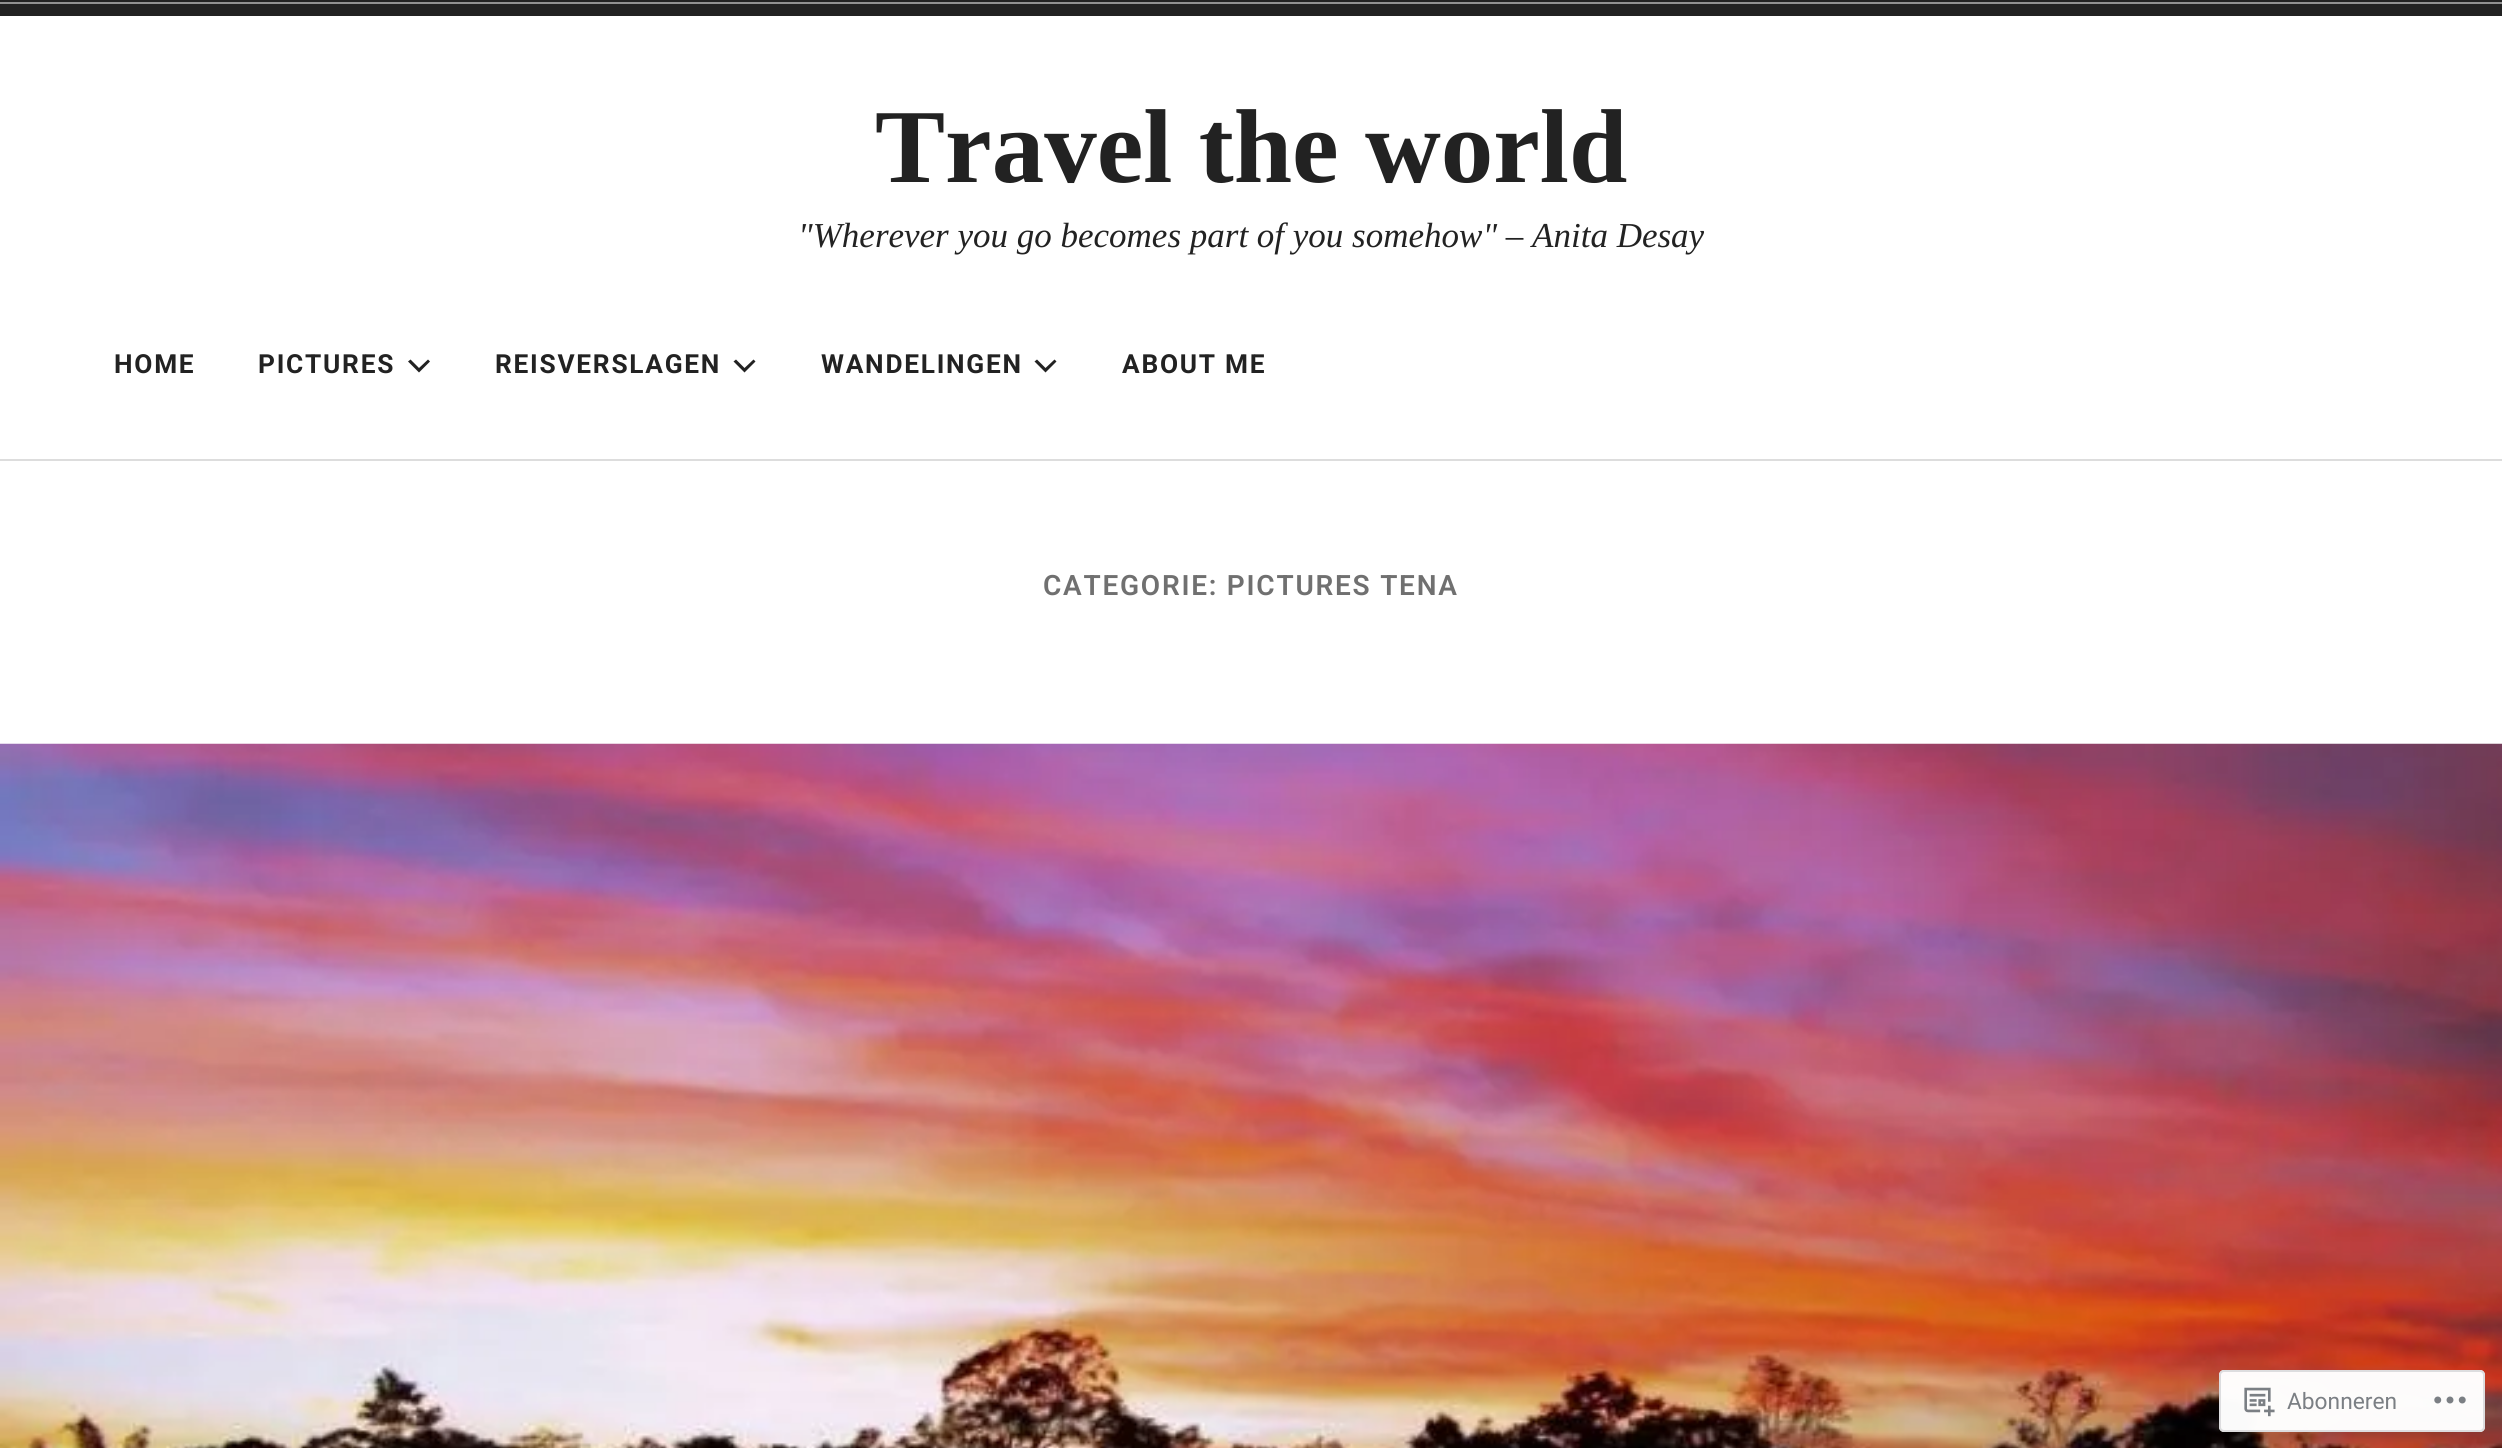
#include <cairo/cairo.h>
#include <math.h>
#include <stddef.h>

static cairo_t *cr;

static void use_color(int r, int g, int b) {
  cairo_set_source_rgb(cr, r / 255.0, g / 255.0, b / 255.0);
}

static void text(double x, double y, const char *s, const char *family, double size, int italic, int bold, int r, int g, int b) {
  cairo_select_font_face(cr, family, italic ? CAIRO_FONT_SLANT_ITALIC : CAIRO_FONT_SLANT_NORMAL,
    bold ? CAIRO_FONT_WEIGHT_BOLD : CAIRO_FONT_WEIGHT_NORMAL);
  cairo_set_font_size(cr, size);
  use_color(r, g, b);
  cairo_move_to(cr, x, y);
  cairo_show_text(cr, s);
}

static void spaced_text(double x, double y, const char *s, double letter, double word) {
  cairo_move_to(cr, x, y);
  while (*s) {
    char ch[5] = {0};
    int n = 0;
    do ch[n++] = *s++; while ((*s & 0xC0) == 0x80);
    cairo_show_text(cr, ch);
    cairo_rel_move_to(cr, letter + word * (*ch == ' '), 0);
  }
}

static void box(double x, double y, double w, double h, int r, int g, int b) {
  use_color(r, g, b);
  cairo_rectangle(cr, x, y, w, h);
  cairo_fill(cr);
}

static void round_rect(double x, double y, double w, double h, double r) {
  cairo_new_sub_path(cr);
  cairo_arc(cr, x + w - r, y + h - r, r, 0, M_PI / 2);
  cairo_arc(cr, x + r, y + h - r, r, M_PI / 2, M_PI);
  cairo_arc(cr, x + r, y + r, r, M_PI, 1.5 * M_PI);
  cairo_arc(cr, x + w - r, y + r, r, 1.5 * M_PI, 2 * M_PI);
  cairo_close_path(cr);
}

static void picture(const char *path, double x, double y, double w, double h) {
  cairo_surface_t *image = cairo_image_surface_create_from_png(path);
  cairo_save(cr);
  cairo_set_source_surface(cr, image, x, y);
  cairo_rectangle(cr, x, y, w, h);
  cairo_fill(cr);
  cairo_restore(cr);
  cairo_surface_destroy(image);
}

static void draw(void) {
  use_color(255, 255, 255);
  cairo_paint(cr);
  box(0, 0, 2502, 16, 34, 34, 34);
  box(0, 2, 2502, 2, 145, 145, 145);
  use_color(34, 34, 34);
  cairo_new_path(cr);
  cairo_move_to(cr, 419, 372.5);
  cairo_line_to(cr, 408, 361.5);
  cairo_line_to(cr, 410.5, 359.5);
  cairo_line_to(cr, 419, 368);
  cairo_line_to(cr, 428, 359.5);
  cairo_line_to(cr, 430, 361.5);
  cairo_close_path(cr);
  cairo_fill(cr);
  cairo_new_path(cr);
  cairo_move_to(cr, 744.5, 372.5);
  cairo_line_to(cr, 733.5, 361.5);
  cairo_line_to(cr, 736, 359.5);
  cairo_line_to(cr, 744.5, 368);
  cairo_line_to(cr, 753.5, 359.5);
  cairo_line_to(cr, 755.5, 361.5);
  cairo_close_path(cr);
  cairo_fill(cr);
  cairo_new_path(cr);
  cairo_move_to(cr, 1045.5, 372.5);
  cairo_line_to(cr, 1034.5, 361.5);
  cairo_line_to(cr, 1037, 359.5);
  cairo_line_to(cr, 1045.5, 368);
  cairo_line_to(cr, 1054.5, 359.5);
  cairo_line_to(cr, 1056.5, 361.5);
  cairo_close_path(cr);
  cairo_fill(cr);
  box(0, 459, 2502, 2, 221, 221, 221);
  picture("img_01.png", 0, 743, 2502, 705);
  cairo_set_source_rgba(cr, 1, 1, 1, 0.98);
  round_rect(2219, 1370, 266, 62, 5);
  cairo_fill(cr);
  round_rect(2220, 1371, 264, 60, 4);
  cairo_set_source_rgba(cr, 0.863, 0.863, 0.871, 0.98);
  cairo_stroke(cr);
  picture("img_02.png", 2244, 1387, 31, 30);
  picture("img_03.png", 2434, 1396, 32, 8);
  text(875, 182, "Travel the world", "Liberation Serif", 105, 0, 1, 34, 34, 34);
  text(798, 247, "\"Wherever you go becomes part of you somehow\" – Anita Desay", "Liberation Serif", 35, 1, 0, 34, 34, 34);
  cairo_select_font_face(cr, "Roboto", CAIRO_FONT_SLANT_NORMAL, CAIRO_FONT_WEIGHT_BOLD);
  cairo_set_font_size(cr, 26.25);
  spaced_text(114, 373, "HOME", 1.75, 0);
  spaced_text(258, 373, "PICTURES", 1.75, 0);
  spaced_text(495, 373, "REISVERSLAGEN", 1.75, 0);
  spaced_text(821, 373, "WANDELINGEN", 1.75, 0);
  spaced_text(1122, 373, "ABOUT ME", 1.75, 0);
  cairo_select_font_face(cr, "Roboto SemiBold", CAIRO_FONT_SLANT_NORMAL, CAIRO_FONT_WEIGHT_NORMAL);
  cairo_set_font_size(cr, 28);
  use_color(112, 112, 112);
  spaced_text(1043, 595, "CATEGORIE: PICTURES TENA", 1.75, 0);
  text(2287, 1409, "Abonneren", "Roboto", 22.75, 0, 0, 123, 127, 132);
}

int main(void) {
  cairo_surface_t *surface = cairo_image_surface_create(CAIRO_FORMAT_RGB24, 2502, 1448);
  cr = cairo_create(surface);
  cairo_font_options_t *options = cairo_font_options_create();
  cairo_font_options_set_hint_metrics(options, CAIRO_HINT_METRICS_OFF);
  cairo_font_options_set_hint_style(options, CAIRO_HINT_STYLE_NONE);
  cairo_set_font_options(cr, options);
  cairo_set_miter_limit(cr, 4);
  draw();
  cairo_surface_write_to_png(surface, "out.png");
  cairo_font_options_destroy(options);
  cairo_destroy(cr);
  cairo_surface_destroy(surface);
  return 0;
}
